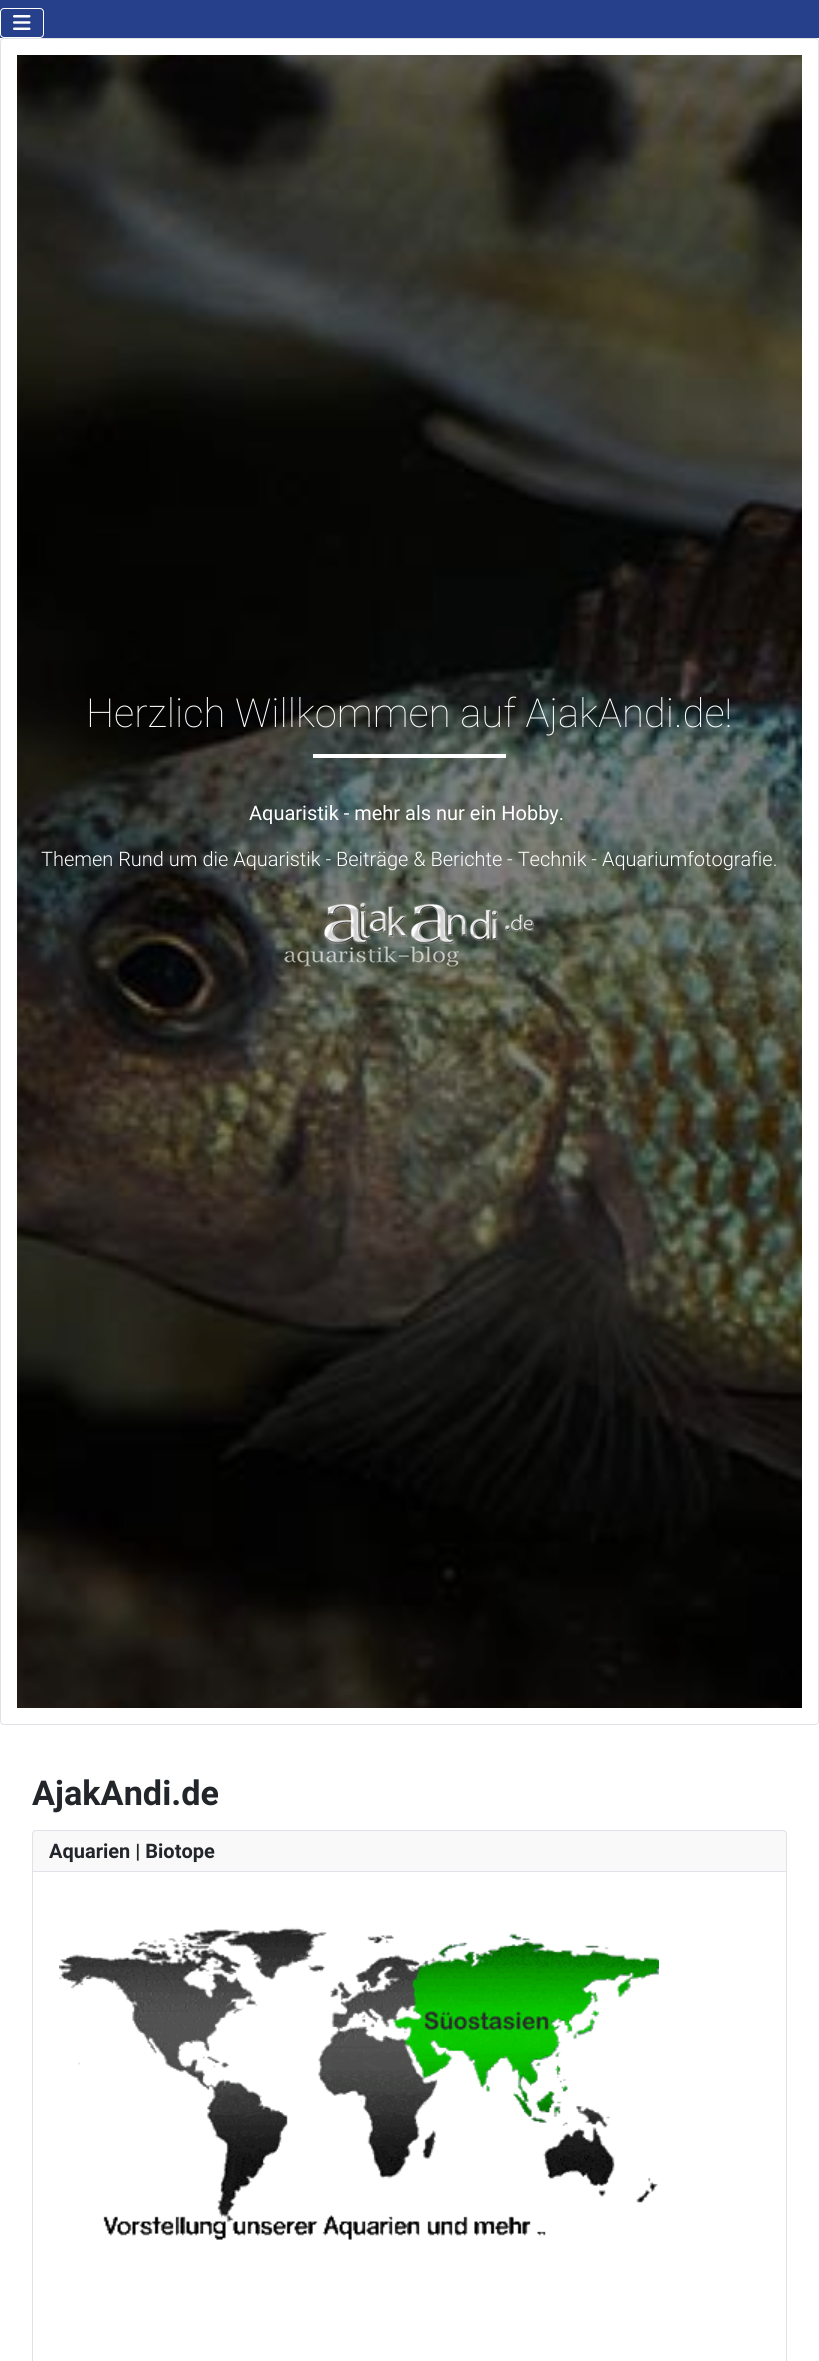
#include <cairo/cairo.h>
#include <math.h>
#include <stddef.h>

static cairo_t *cr;

static void use_color(int r, int g, int b) {
  cairo_set_source_rgb(cr, r / 255.0, g / 255.0, b / 255.0);
}

static void text(double x, double y, const char *s, const char *family, double size, int italic, int bold, int r, int g, int b) {
  cairo_select_font_face(cr, family, italic ? CAIRO_FONT_SLANT_ITALIC : CAIRO_FONT_SLANT_NORMAL,
    bold ? CAIRO_FONT_WEIGHT_BOLD : CAIRO_FONT_WEIGHT_NORMAL);
  cairo_set_font_size(cr, size);
  use_color(r, g, b);
  cairo_move_to(cr, x, y);
  cairo_show_text(cr, s);
}

static void box(double x, double y, double w, double h, int r, int g, int b) {
  use_color(r, g, b);
  cairo_rectangle(cr, x, y, w, h);
  cairo_fill(cr);
}

static void round_rect(double x, double y, double w, double h, double r) {
  cairo_new_sub_path(cr);
  cairo_arc(cr, x + w - r, y + h - r, r, 0, M_PI / 2);
  cairo_arc(cr, x + r, y + h - r, r, M_PI / 2, M_PI);
  cairo_arc(cr, x + r, y + r, r, M_PI, 1.5 * M_PI);
  cairo_arc(cr, x + w - r, y + r, r, 1.5 * M_PI, 2 * M_PI);
  cairo_close_path(cr);
}

static void picture(const char *path, double x, double y, double w, double h) {
  cairo_surface_t *image = cairo_image_surface_create_from_png(path);
  cairo_save(cr);
  cairo_set_source_surface(cr, image, x, y);
  cairo_rectangle(cr, x, y, w, h);
  cairo_fill(cr);
  cairo_restore(cr);
  cairo_surface_destroy(image);
}

static void draw(void) {
  use_color(255, 255, 255);
  cairo_paint(cr);
  box(0, 0, 819, 38, 39, 64, 139);
  round_rect(0.5, 8.5, 43, 29, 3.5);
  use_color(255, 255, 255);
  cairo_set_line_width(cr, 1);
  cairo_stroke(cr);
  picture("img_01.png", 13, 15, 18, 15);
  round_rect(0.5, 38.5, 818, 1686, 3.5);
  use_color(223, 227, 231);
  cairo_stroke(cr);
  picture("img_02.png", 17, 55, 785, 1653);
  box(313, 754, 193, 4, 255, 255, 255);
  picture("img_03.png", 284, 902, 251, 65);
  round_rect(32.5, 1830.5, 754, 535, 3.5);
  use_color(223, 227, 231);
  cairo_stroke(cr);
  cairo_set_source_rgba(cr, 0.133, 0.149, 0.165, 0.03);
  cairo_rectangle(cr, 33, 1831, 753, 40);
  cairo_fill(cr);
  box(33, 1871, 753, 1, 223, 227, 231);
  picture("img_04.png", 59, 1927, 600, 313);
  text(86, 727, "Herzlich Willkommen auf AjakAndi.de!", "Roboto Thin", 40, 0, 0, 255, 255, 255);
  text(249, 820, "Aquaristik - mehr als nur ein Hobby.", "Roboto", 20, 0, 0, 255, 255, 255);
  text(41, 866, "Themen Rund um die Aquaristik - Beiträge & Berichte - Technik - Aquariumfotografie.", "Roboto Light", 20, 0, 0, 255, 255, 255);
  text(32, 1805, "AjakAndi.de", "Roboto", 34.25, 0, 1, 34, 38, 42);
  text(49, 1858, "Aquarien | Biotope", "Roboto", 20, 0, 1, 34, 38, 42);
}

int main(void) {
  cairo_surface_t *surface = cairo_image_surface_create(CAIRO_FORMAT_RGB24, 819, 2361);
  cr = cairo_create(surface);
  cairo_font_options_t *options = cairo_font_options_create();
  cairo_font_options_set_hint_metrics(options, CAIRO_HINT_METRICS_OFF);
  cairo_font_options_set_hint_style(options, CAIRO_HINT_STYLE_NONE);
  cairo_set_font_options(cr, options);
  cairo_set_miter_limit(cr, 4);
  draw();
  cairo_surface_write_to_png(surface, "out.png");
  cairo_font_options_destroy(options);
  cairo_destroy(cr);
  cairo_surface_destroy(surface);
  return 0;
}
